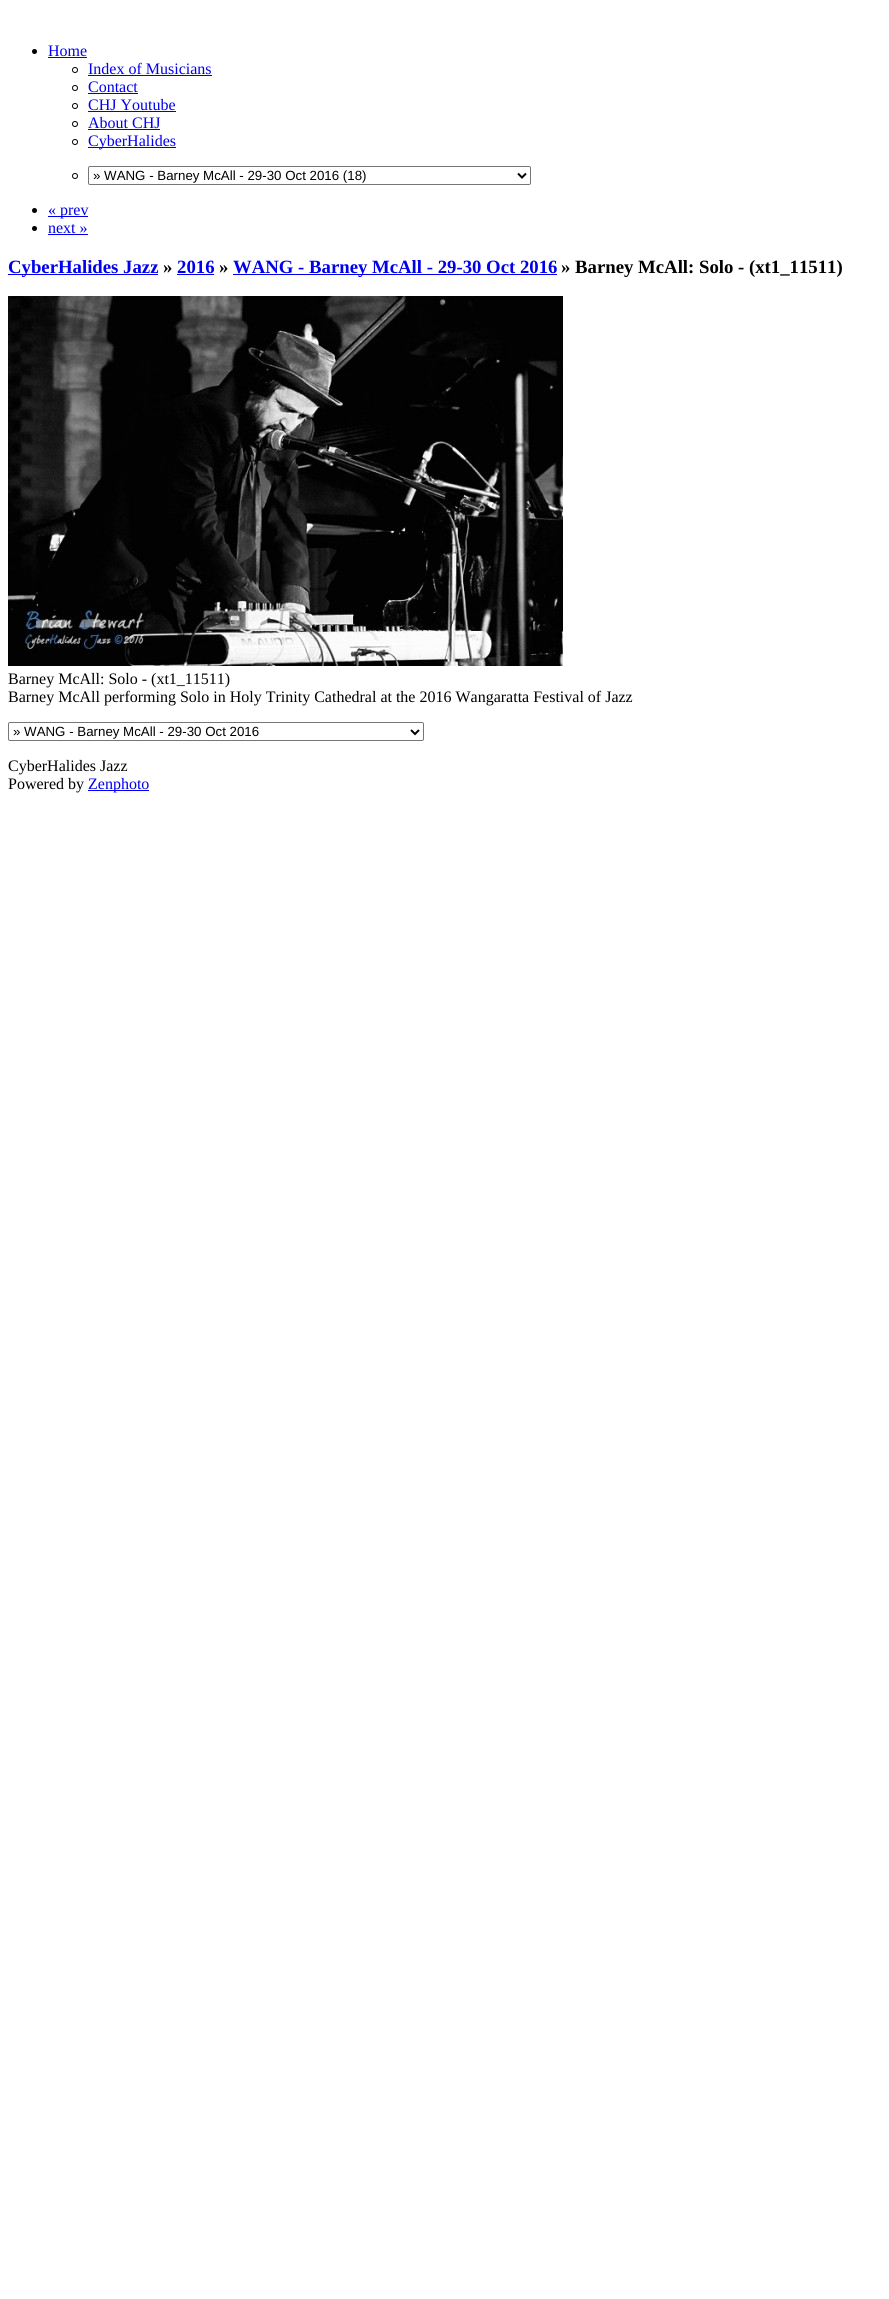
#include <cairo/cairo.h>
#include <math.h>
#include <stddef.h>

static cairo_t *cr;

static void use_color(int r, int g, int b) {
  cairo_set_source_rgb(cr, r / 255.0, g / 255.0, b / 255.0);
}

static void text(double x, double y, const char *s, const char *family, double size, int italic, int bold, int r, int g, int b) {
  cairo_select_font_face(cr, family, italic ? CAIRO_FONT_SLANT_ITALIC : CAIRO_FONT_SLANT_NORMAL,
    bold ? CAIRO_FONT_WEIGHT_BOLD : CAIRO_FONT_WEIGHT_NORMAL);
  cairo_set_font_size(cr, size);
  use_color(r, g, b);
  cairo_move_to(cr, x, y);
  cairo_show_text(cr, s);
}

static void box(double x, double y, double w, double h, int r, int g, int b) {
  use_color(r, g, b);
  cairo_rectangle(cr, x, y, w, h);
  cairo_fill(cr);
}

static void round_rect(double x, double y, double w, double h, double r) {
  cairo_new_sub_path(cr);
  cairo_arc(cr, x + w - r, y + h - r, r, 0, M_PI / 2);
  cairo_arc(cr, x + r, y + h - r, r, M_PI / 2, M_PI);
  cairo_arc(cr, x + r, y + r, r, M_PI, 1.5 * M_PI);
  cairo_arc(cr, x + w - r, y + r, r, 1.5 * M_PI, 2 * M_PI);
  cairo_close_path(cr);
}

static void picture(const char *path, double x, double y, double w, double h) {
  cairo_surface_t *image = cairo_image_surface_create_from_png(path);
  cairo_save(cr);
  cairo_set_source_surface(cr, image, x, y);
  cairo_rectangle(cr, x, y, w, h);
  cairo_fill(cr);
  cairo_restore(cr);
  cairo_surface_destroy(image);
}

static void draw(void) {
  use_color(255, 255, 255);
  cairo_paint(cr);
  use_color(0, 0, 0);
  cairo_arc(cr, 34.5, 51.5, 2.5, 0, 2 * M_PI);
  cairo_fill(cr);
  box(48, 57, 39, 1, 0, 0, 238);
  cairo_arc(cr, 75, 70, 2.5, 0, 2 * M_PI);
  use_color(0, 0, 0);
  cairo_set_line_width(cr, 1);
  cairo_stroke(cr);
  box(88, 75, 124, 1, 0, 0, 238);
  cairo_arc(cr, 75, 88, 2.5, 0, 2 * M_PI);
  use_color(0, 0, 0);
  cairo_stroke(cr);
  box(88, 93, 50, 1, 0, 0, 238);
  cairo_arc(cr, 75, 106, 2.5, 0, 2 * M_PI);
  use_color(0, 0, 0);
  cairo_stroke(cr);
  box(88, 111, 88, 1, 0, 0, 238);
  cairo_arc(cr, 75, 124, 2.5, 0, 2 * M_PI);
  use_color(0, 0, 0);
  cairo_stroke(cr);
  box(88, 129, 72, 1, 0, 0, 238);
  cairo_arc(cr, 75, 142, 2.5, 0, 2 * M_PI);
  use_color(0, 0, 0);
  cairo_stroke(cr);
  box(88, 147, 88, 1, 0, 0, 238);
  cairo_arc(cr, 75, 176, 2.5, 0, 2 * M_PI);
  use_color(0, 0, 0);
  cairo_stroke(cr);
  round_rect(88.5, 166.5, 442, 18, 1.5);
  use_color(118, 118, 118);
  cairo_stroke(cr);
  cairo_new_path(cr);
  cairo_move_to(cr, 518, 173.5);
  cairo_line_to(cr, 522, 177.5);
  cairo_line_to(cr, 526, 173.5);
  use_color(0, 0, 0);
  cairo_set_line_width(cr, 2);
  cairo_stroke(cr);
  cairo_arc(cr, 34.5, 210.5, 2.5, 0, 2 * M_PI);
  cairo_fill(cr);
  box(48, 216, 40, 1, 0, 0, 238);
  use_color(0, 0, 0);
  cairo_arc(cr, 34.5, 228.5, 2.5, 0, 2 * M_PI);
  cairo_fill(cr);
  box(48, 234, 40, 1, 0, 0, 238);
  box(8, 274, 150, 1, 0, 0, 238);
  box(177, 274, 37, 1, 0, 0, 238);
  box(233, 274, 324, 1, 0, 0, 238);
  picture("img_01.png", 8, 296, 555, 370);
  round_rect(8.5, 722.5, 415, 18, 1.5);
  use_color(118, 118, 118);
  cairo_set_line_width(cr, 1);
  cairo_stroke(cr);
  cairo_new_path(cr);
  cairo_move_to(cr, 411, 730);
  cairo_line_to(cr, 415, 734);
  cairo_line_to(cr, 419, 730);
  use_color(0, 0, 0);
  cairo_set_line_width(cr, 2);
  cairo_stroke(cr);
  box(88, 790, 61, 1, 0, 0, 238);
  text(48, 56, "Home", "Liberation Serif", 16, 0, 0, 0, 0, 238);
  text(88, 74, "Index of Musicians", "Liberation Serif", 16, 0, 0, 0, 0, 238);
  text(88, 92, "Contact", "Liberation Serif", 16, 0, 0, 0, 0, 238);
  text(88, 110, "CHJ Youtube", "Liberation Serif", 16, 0, 0, 0, 0, 238);
  text(88, 128, "About CHJ", "Liberation Serif", 16, 0, 0, 0, 0, 238);
  text(88, 146, "CyberHalides", "Liberation Serif", 16, 0, 0, 0, 0, 238);
  text(93, 180, "» WANG - Barney McAll - 29-30 Oct 2016 (18)", "Liberation Sans", 13.3, 0, 0, 0, 0, 0);
  text(48, 215, "« prev", "Liberation Serif", 16, 0, 0, 0, 0, 238);
  text(48, 233, "next »", "Liberation Serif", 16, 0, 0, 0, 0, 238);
  text(8, 273, "CyberHalides Jazz", "Liberation Serif", 18.75, 0, 1, 0, 0, 238);
  text(163, 273, "»", "Liberation Serif", 18.75, 0, 1, 0, 0, 0);
  text(177, 273, "2016", "Liberation Serif", 18.75, 0, 1, 0, 0, 238);
  text(219, 273, "»", "Liberation Serif", 18.75, 0, 1, 0, 0, 0);
  text(233, 273, "WANG - Barney McAll - 29-30 Oct 2016", "Liberation Serif", 18.75, 0, 1, 0, 0, 238);
  text(561, 273, "» Barney McAll: Solo - (xt1_11511)", "Liberation Serif", 18.75, 0, 1, 0, 0, 0);
  text(8, 684, "Barney McAll: Solo - (xt1_11511)", "Liberation Serif", 16, 0, 0, 0, 0, 0);
  text(8, 702, "Barney McAll performing Solo in Holy Trinity Cathedral at the 2016 Wangaratta Festival of Jazz", "Liberation Serif", 16, 0, 0, 0, 0, 0);
  text(13, 736, "» WANG - Barney McAll - 29-30 Oct 2016", "Liberation Sans", 13.3, 0, 0, 0, 0, 0);
  text(8, 771, "CyberHalides Jazz", "Liberation Serif", 16, 0, 0, 0, 0, 0);
  text(8, 789, "Powered by", "Liberation Serif", 16, 0, 0, 0, 0, 0);
  text(88, 789, "Zenphoto", "Liberation Serif", 16, 0, 0, 0, 0, 238);
}

int main(void) {
  cairo_surface_t *surface = cairo_image_surface_create(CAIRO_FORMAT_RGB24, 889, 2299);
  cr = cairo_create(surface);
  cairo_font_options_t *options = cairo_font_options_create();
  cairo_font_options_set_hint_metrics(options, CAIRO_HINT_METRICS_OFF);
  cairo_font_options_set_hint_style(options, CAIRO_HINT_STYLE_NONE);
  cairo_set_font_options(cr, options);
  cairo_set_miter_limit(cr, 4);
  draw();
  cairo_surface_write_to_png(surface, "out.png");
  cairo_font_options_destroy(options);
  cairo_destroy(cr);
  cairo_surface_destroy(surface);
  return 0;
}
